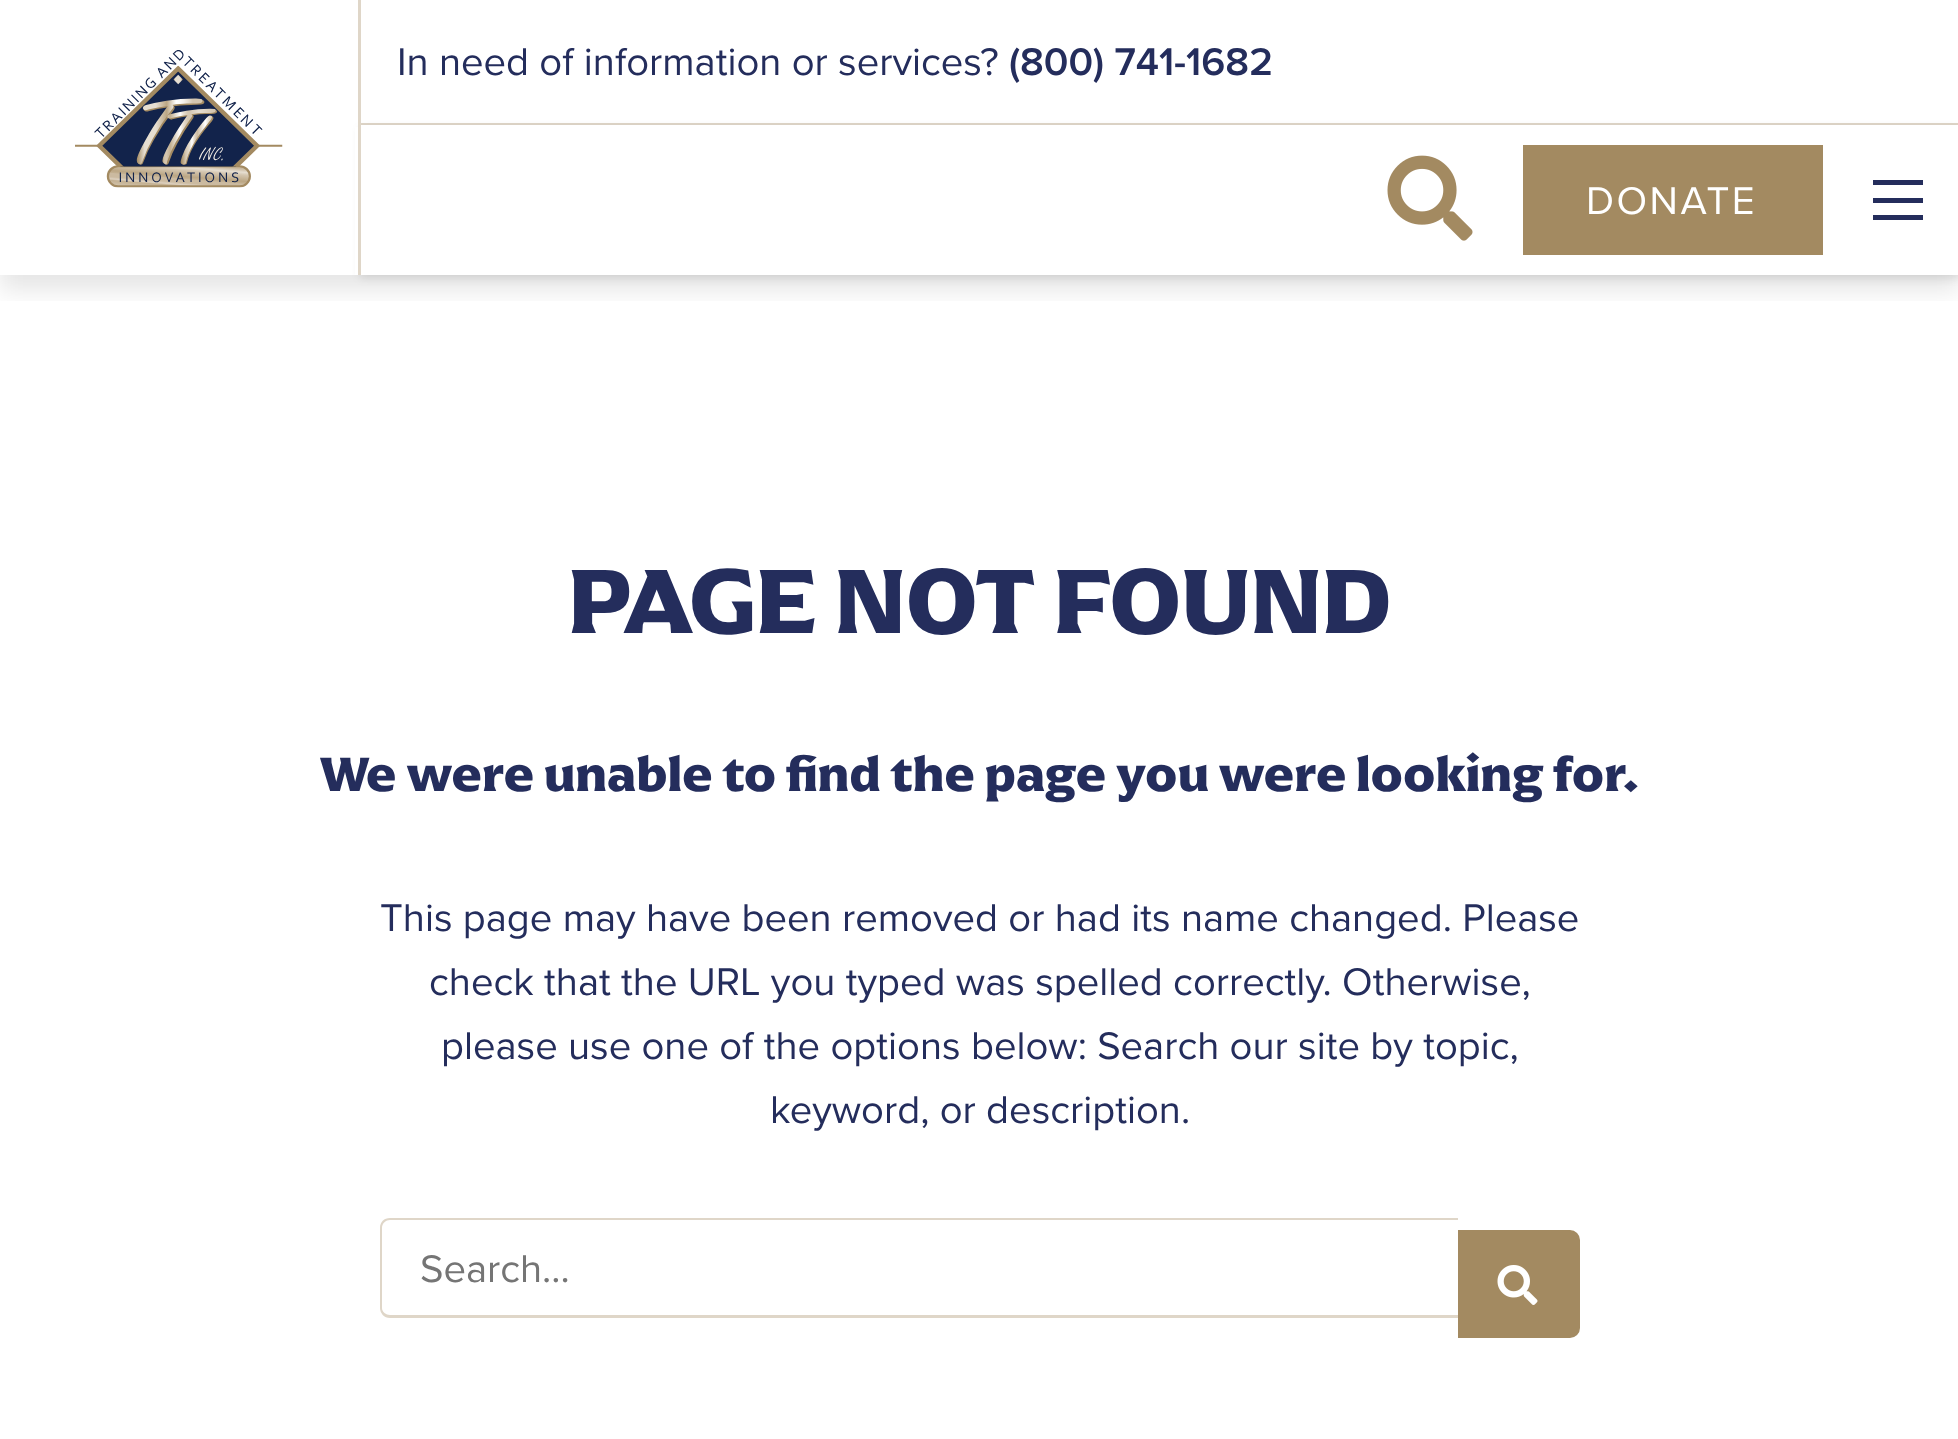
(async () => {
    const canvas = document.querySelector("canvas");
    canvas.width = 1958;
    canvas.height = 1439;
    const context = canvas.getContext("2d");
    context.miterLimit = 4;
    context.fontKerning = "normal";
    function write(s, x, y, font, color) {
        context.font = font;
        context.fillStyle = color;
        context.fillText(s, x, y);
    }
    function block(x, y, w, h, color) {
        context.fillStyle = color;
        context.fillRect(x, y, w, h);
    }
    async function photo(src, x, y, w, h) {
        const img = new Image();
        img.src = src;
        await img.decode();
        context.drawImage(img, x, y, w, h);
    }

    block(0, 0, 1958, 1439, "rgb(255, 255, 255)");
    context.save();
    context.beginPath();
    context.rect(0, 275, 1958, 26);
    context.clip();
    context.fillStyle = "rgba(0, 0, 0, 0.1)";
    context.filter = "blur(12.5px)";
    context.beginPath();
    context.rect(0, 15, 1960, 275);
    context.fill();
    context.filter = "none";
    context.restore();
    block(360, 123, 1598, 2, "rgb(223, 214, 200)");
    context.fillStyle = "rgba(0, 0, 0, 0.1)";
    context.filter = "blur(4px)";
    context.beginPath();
    context.rect(360, 128, 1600, 150);
    context.fill();
    context.filter = "none";
    block(355, 127, 3, 148, "rgb(255, 255, 255)");
    block(358, 0, 3, 275, "rgb(223, 214, 200)");
    await photo("media/1.png", 75, 50, 208, 138);
    write("In need of information or services?", 397, 75, "40px Proxima Nova", "rgb(36, 45, 92)");
    write("(800) 741-1682", 1009, 75, "600 40px Proxima Nova", "rgb(36, 45, 92)");
    block(361, 125, 1597, 150, "rgb(255, 255, 255)");
    await photo("media/2.png", 1387, 155, 86, 86);
    block(1523, 145, 300, 110, "rgb(163, 138, 97)");
    context.letterSpacing = "2.5px";
    write("DONATE", 1586, 214, "40px Proxima Nova", "rgb(255, 255, 255)");
    block(1873, 180, 50, 5, "rgb(36, 45, 92)");
    block(1873, 198, 50, 5, "rgb(36, 45, 92)");
    block(1873, 215, 50, 5, "rgb(36, 45, 92)");
    context.letterSpacing = "0px";
    write("PAGE NOT FOUND", 568, 633, "bold 95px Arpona", "rgb(36, 45, 92)");
    write("We were unable to find the page you were looking for.", 320, 791, "bold 50px Arpona", "rgb(36, 45, 92)");
    write("This page may have been removed or had its name changed. Please", 380, 931, "40px Proxima Nova", "rgb(36, 45, 92)");
    write("check that the URL you typed was spelled correctly. Otherwise,", 429, 995, "40px Proxima Nova", "rgb(36, 45, 92)");
    write("please use one of the options below: Search our site by topic,", 441, 1059, "40px Proxima Nova", "rgb(36, 45, 92)");
    write("keyword, or description.", 770, 1123, "40px Proxima Nova", "rgb(36, 45, 92)");
    context.fillStyle = "rgb(223, 214, 200)";
    context.beginPath();
    context.moveTo(390, 1218);
    context.lineTo(1458, 1218);
    context.lineTo(1458, 1318);
    context.lineTo(390, 1318);
    context.bezierCurveTo(384, 1318, 380, 1313, 380, 1308);
    context.lineTo(380, 1228);
    context.bezierCurveTo(380, 1222, 384, 1218, 390, 1218);
    context.closePath();
    context.moveTo(390, 1220);
    context.lineTo(1458, 1220);
    context.lineTo(1458, 1315);
    context.lineTo(390, 1315);
    context.bezierCurveTo(386, 1315, 382, 1312, 382, 1308);
    context.lineTo(382, 1228);
    context.bezierCurveTo(382, 1223, 386, 1220, 390, 1220);
    context.closePath();
    context.fill("evenodd");
    write("Search...", 420, 1282, "40px Proxima Nova", "rgb(117, 117, 117)");
    context.fillStyle = "rgb(163, 138, 97)";
    context.beginPath();
    context.roundRect(1459.5, 1231.5, 119, 105, [0, 8.5, 8.5, 0]);
    context.fill();
    context.strokeStyle = "rgb(163, 138, 97)";
    context.lineWidth = 3;
    context.stroke();
    await photo("media/3.png", 1497, 1265, 41, 40);
})();
